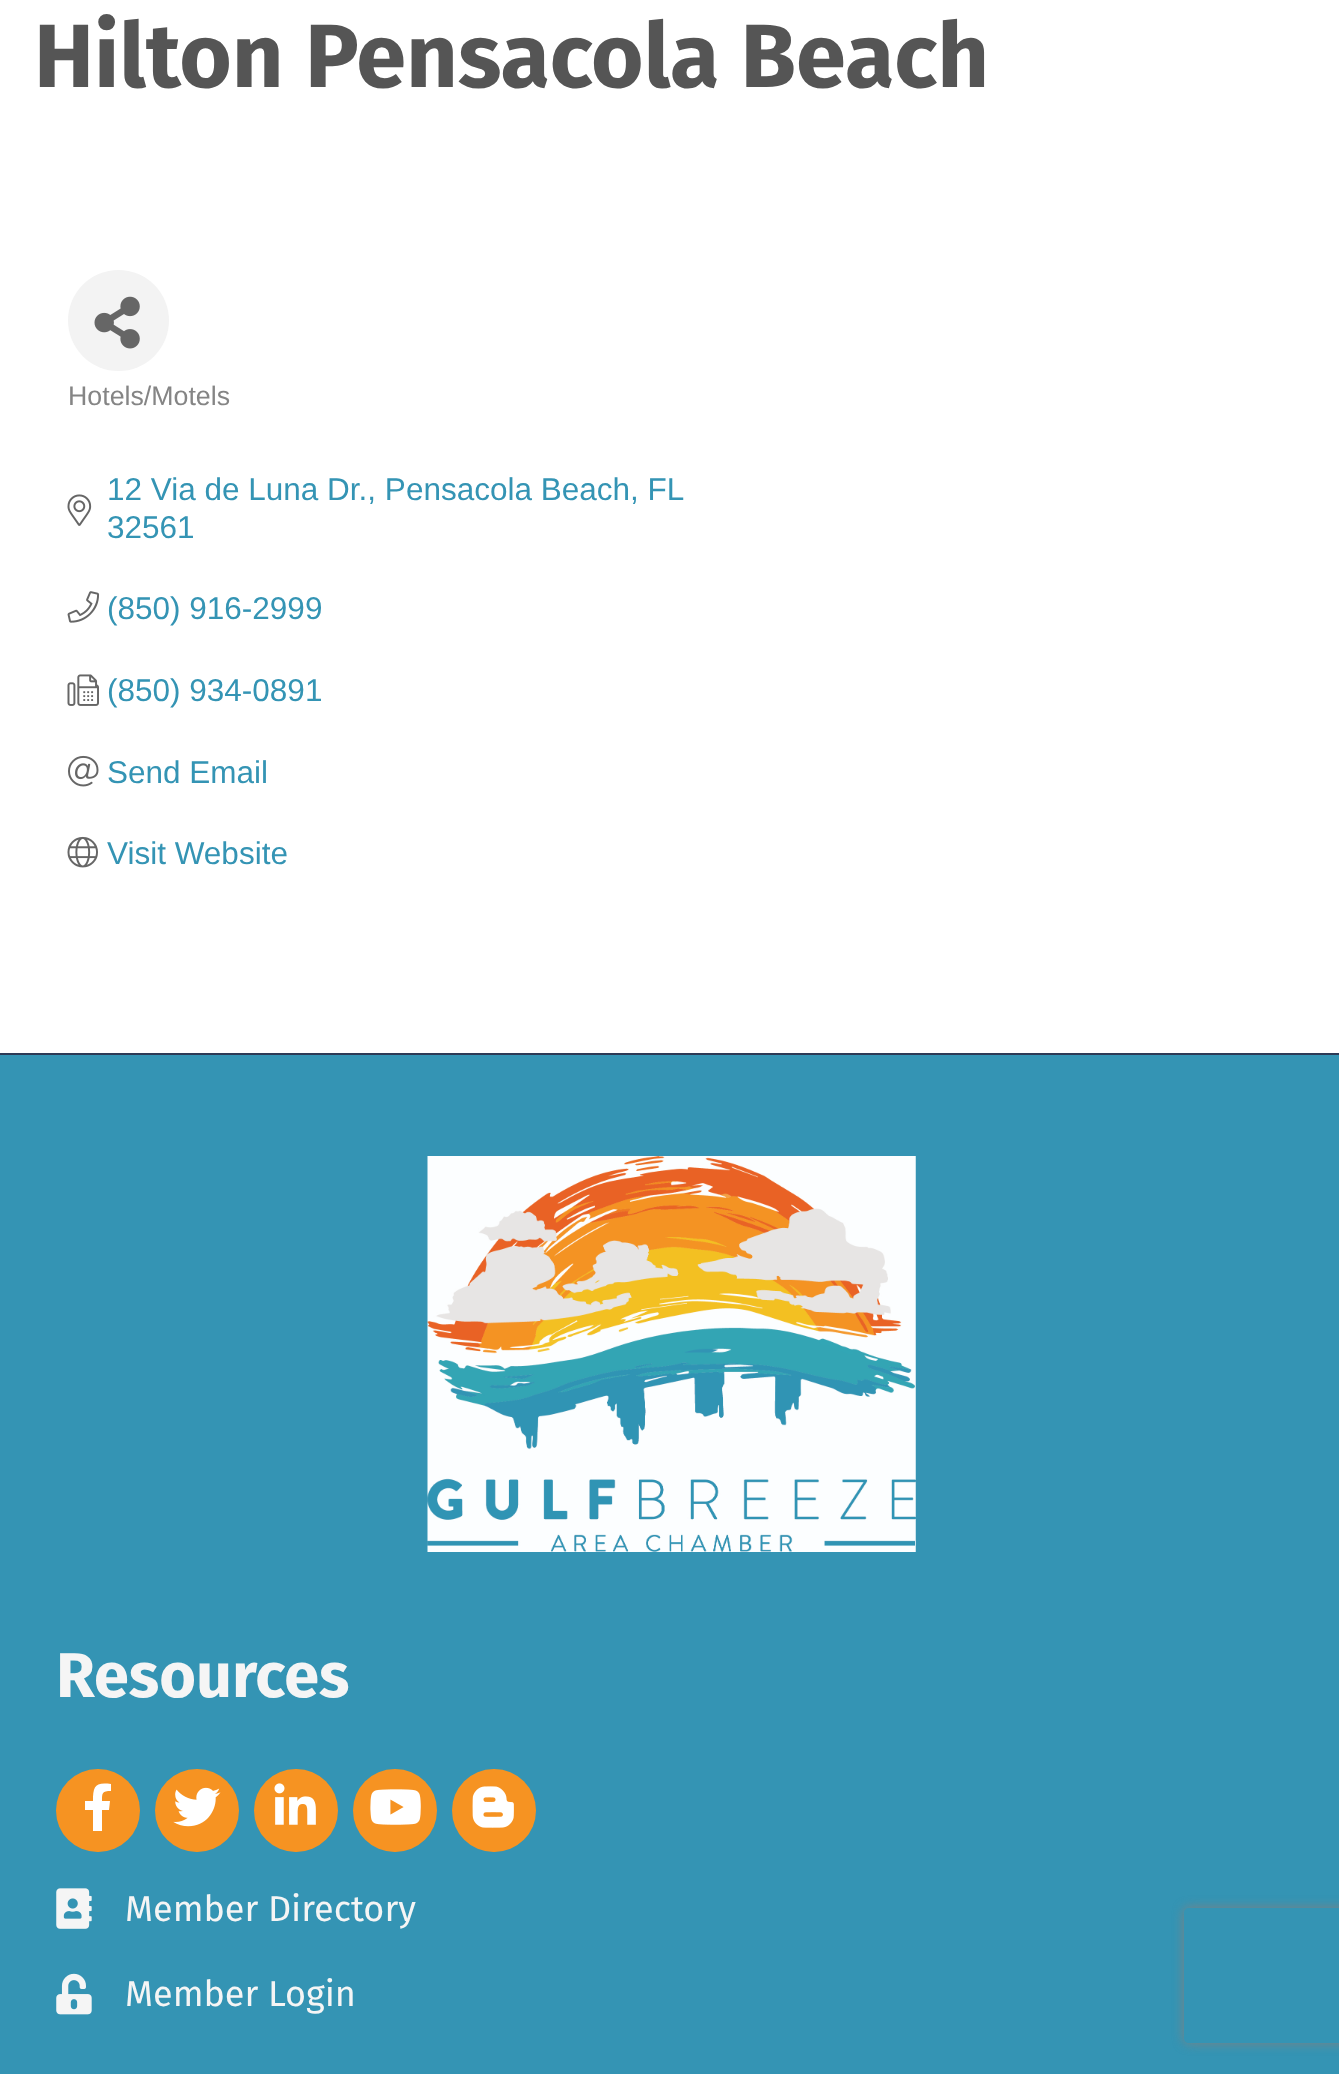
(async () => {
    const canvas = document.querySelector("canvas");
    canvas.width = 1339;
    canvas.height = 2074;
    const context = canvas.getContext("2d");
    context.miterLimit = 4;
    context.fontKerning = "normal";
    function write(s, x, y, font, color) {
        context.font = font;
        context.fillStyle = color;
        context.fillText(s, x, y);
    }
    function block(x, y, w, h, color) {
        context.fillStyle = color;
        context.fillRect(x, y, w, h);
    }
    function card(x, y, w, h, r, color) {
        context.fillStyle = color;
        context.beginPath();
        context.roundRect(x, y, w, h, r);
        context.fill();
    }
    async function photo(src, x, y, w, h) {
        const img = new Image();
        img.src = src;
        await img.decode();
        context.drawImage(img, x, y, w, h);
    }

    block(0, 0, 1339, 2074, "rgb(255, 255, 255)");
    write("Hilton Pensacola Beach", 34, 87, "bold 90px Fira Sans", "rgb(85, 85, 85)");
    context.fillStyle = "rgb(243, 243, 243)";
    context.beginPath();
    context.arc(118.5, 320.5, 50.5, 0, Math.PI * 2);
    context.fill();
    await photo("media/1.png", 94, 296, 46, 53);
    write("Hotels/Motels", 68, 405, "26.75px Liberation Sans", "rgb(133, 133, 133)");
    write("12 Via de Luna Dr., Pensacola Beach, FL", 107, 500, "31.5px Liberation Sans", "rgb(52, 148, 180)");
    await photo("media/2.png", 67, 494, 25, 32);
    write("32561", 107, 538, "31.5px Liberation Sans", "rgb(52, 148, 180)");
    await photo("media/3.png", 67, 591, 33, 32);
    write("(850) 916-2999", 107, 619, "31.5px Liberation Sans", "rgb(52, 148, 180)");
    await photo("media/4.png", 67, 674, 32, 32);
    write("(850) 934-0891", 107, 701, "31.5px Liberation Sans", "rgb(52, 148, 180)");
    await photo("media/5.png", 68, 755, 31, 32);
    write("Send Email", 107, 783, "31.5px Liberation Sans", "rgb(52, 148, 180)");
    await photo("media/6.png", 67, 836, 31, 32);
    write("Visit Website", 107, 864, "31.5px Liberation Sans", "rgb(52, 148, 180)");
    block(0, 1055, 1339, 1019, "rgb(52, 148, 180)");
    block(0, 1053, 1339, 2, "rgb(44, 58, 86)");
    await photo("media/7.png", 427, 1156, 489, 396);
    write("Resources", 56, 1697, "bold 63px Fira Sans", "rgb(245, 245, 245)");
    card(56, 1769, 84, 83, 41.5, "rgb(246, 147, 34)");
    context.fillStyle = "rgb(255, 255, 255)";
    context.beginPath();
    context.moveTo(109, 1810);
    context.lineTo(102, 1810);
    context.lineTo(102, 1831);
    context.lineTo(93, 1831);
    context.lineTo(93, 1810);
    context.lineTo(85, 1810);
    context.lineTo(85, 1801);
    context.lineTo(93, 1801);
    context.bezierCurveTo(93, 1786, 95, 1782, 111, 1784);
    context.lineTo(111, 1791);
    context.bezierCurveTo(102, 1791, 102, 1793, 102, 1801);
    context.lineTo(110, 1801);
    context.closePath();
    context.fill();
    card(155, 1769, 84, 83, 41.5, "rgb(246, 147, 34)");
    await photo("media/8.png", 173, 1787, 48, 40);
    card(254, 1769, 84, 83, 41.5, "rgb(246, 147, 34)");
    await photo("media/9.png", 274, 1783, 42, 42);
    card(353, 1769, 84, 83, 41.5, "rgb(246, 147, 34)");
    await photo("media/10.png", 370, 1789, 51, 36);
    card(452, 1769, 84, 83, 41.5, "rgb(246, 147, 34)");
    await photo("media/11.png", 472, 1786, 42, 42);
    await photo("media/12.png", 56, 1888, 36, 41);
    write("Member Directory", 125, 1921, "36px Fira Sans", "rgb(245, 245, 245)");
    await photo("media/13.png", 56, 1973, 36, 42);
    write("Member Login", 125, 2006, "36px Fira Sans", "rgb(245, 245, 245)");
    context.save();
    context.beginPath();
    context.moveTo(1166, 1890);
    context.lineTo(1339, 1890);
    context.lineTo(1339, 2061);
    context.lineTo(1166, 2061);
    context.closePath();
    context.moveTo(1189, 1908);
    context.lineTo(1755, 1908);
    context.bezierCurveTo(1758, 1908, 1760, 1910, 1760, 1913);
    context.lineTo(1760, 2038);
    context.bezierCurveTo(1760, 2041, 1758, 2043, 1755, 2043);
    context.lineTo(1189, 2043);
    context.bezierCurveTo(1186, 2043, 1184, 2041, 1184, 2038);
    context.lineTo(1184, 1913);
    context.bezierCurveTo(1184, 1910, 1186, 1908, 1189, 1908);
    context.closePath();
    context.clip("evenodd");
    context.fillStyle = "rgb(128, 128, 128)";
    context.filter = "blur(5.5px)";
    context.beginPath();
    context.roundRect(1184, 1908, 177, 135, 5);
    context.fill();
    context.filter = "none";
    context.restore();
})();
